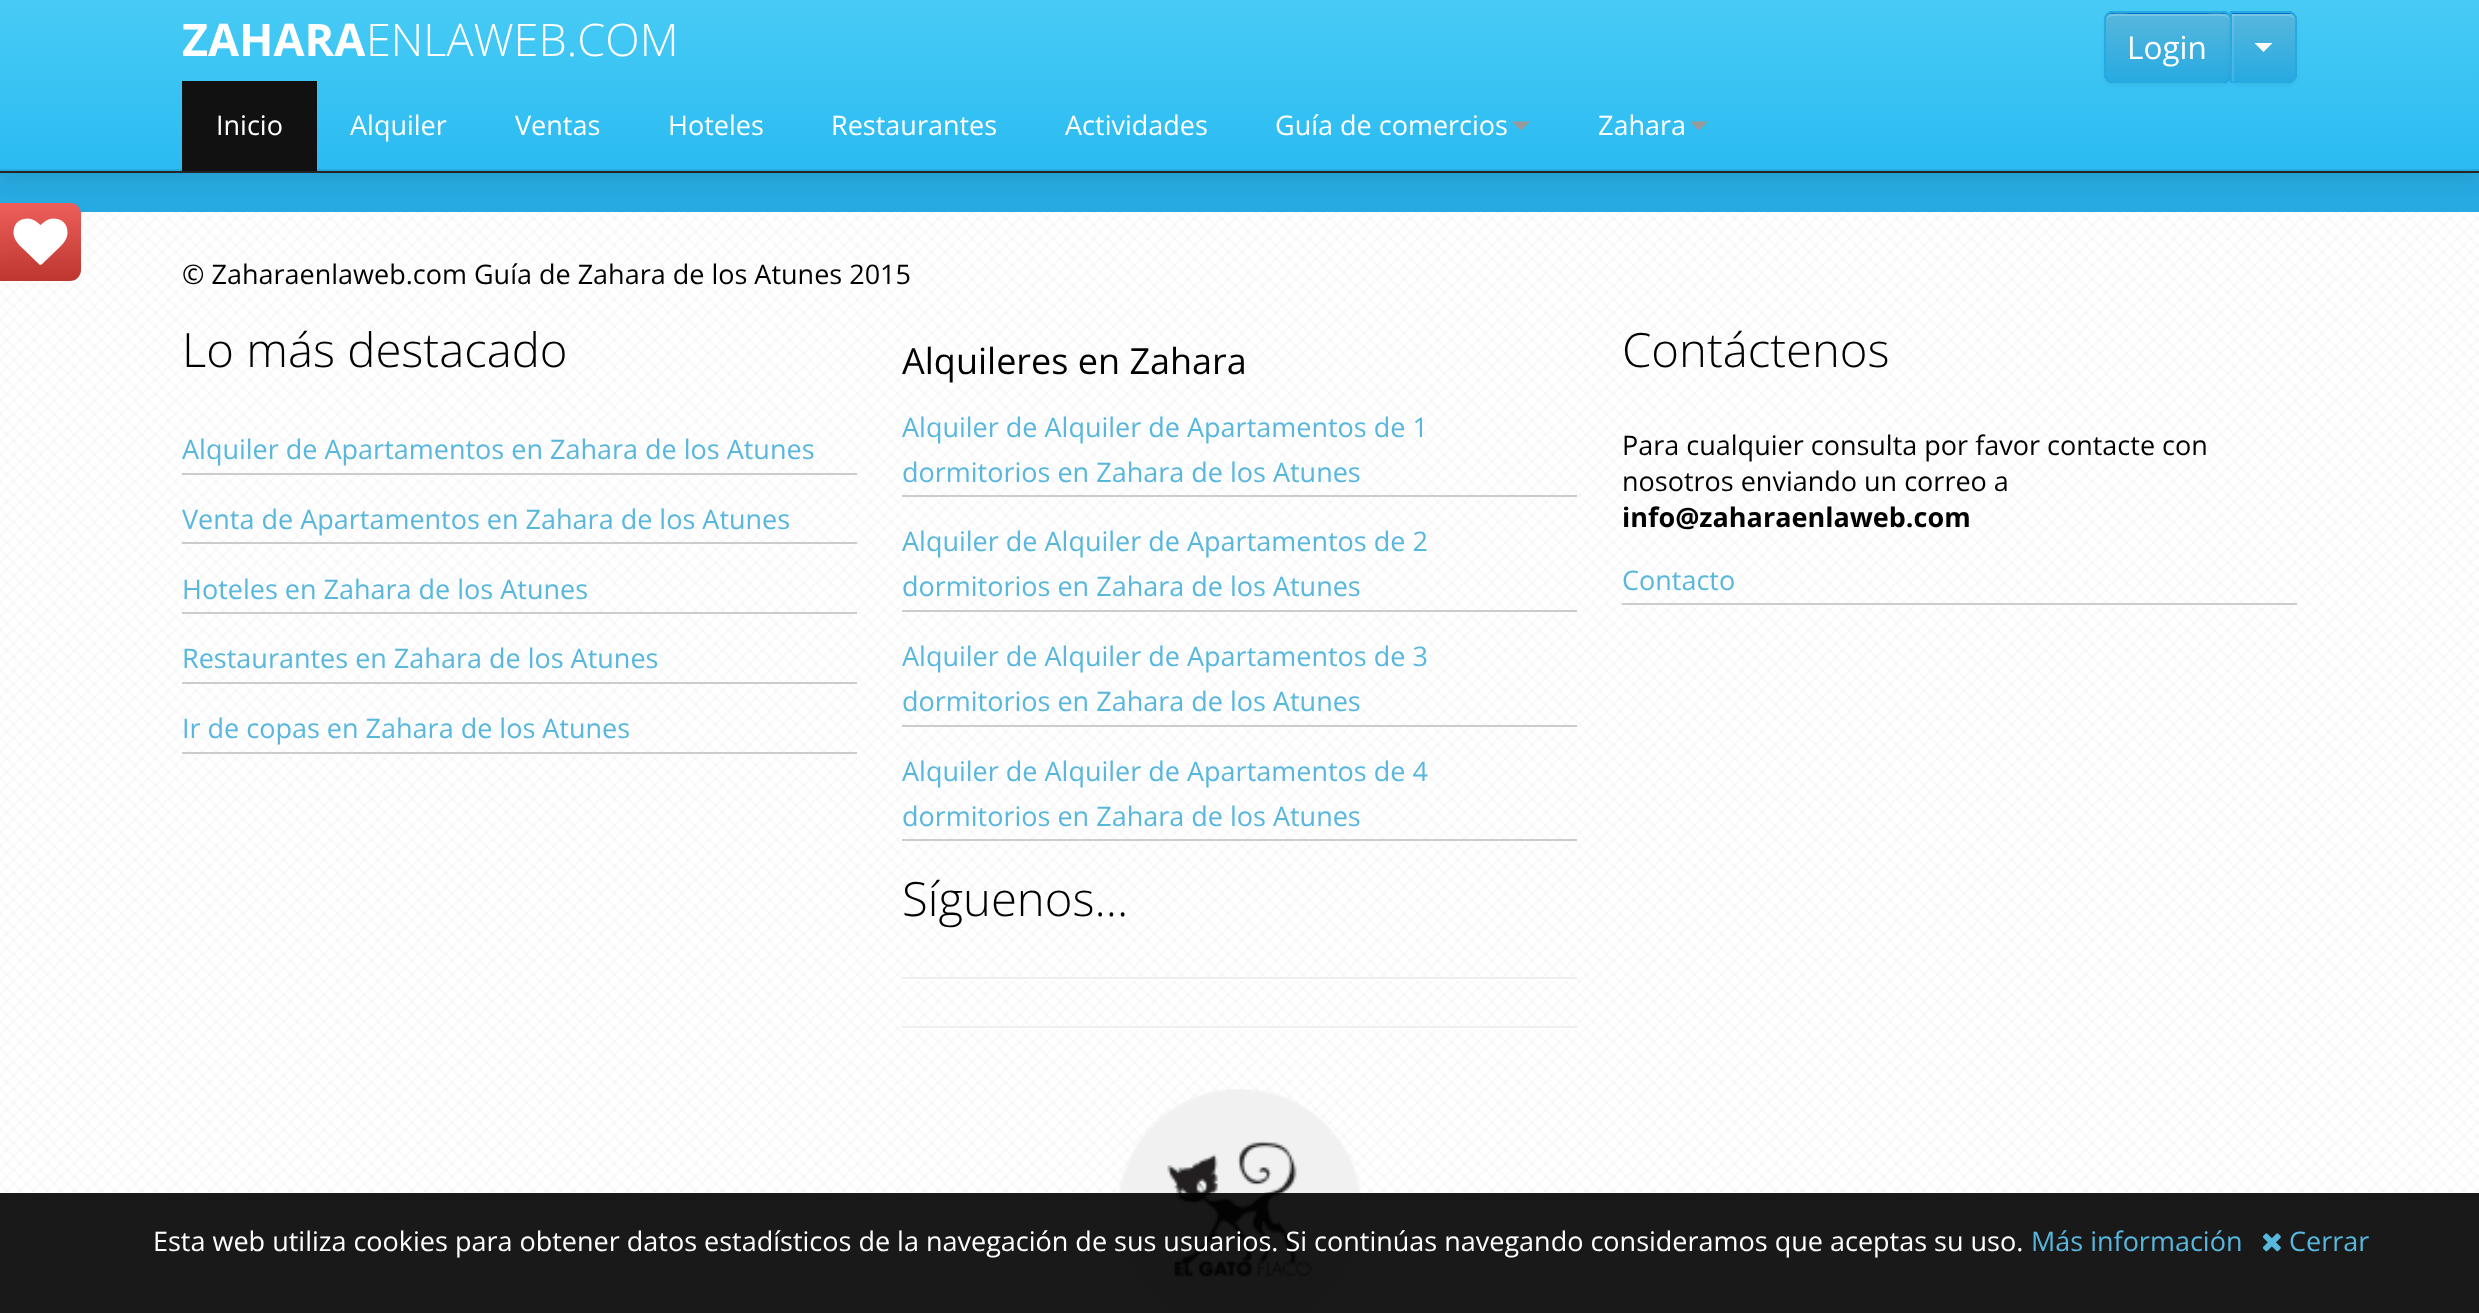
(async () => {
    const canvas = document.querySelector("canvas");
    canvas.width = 2479;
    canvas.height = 1313;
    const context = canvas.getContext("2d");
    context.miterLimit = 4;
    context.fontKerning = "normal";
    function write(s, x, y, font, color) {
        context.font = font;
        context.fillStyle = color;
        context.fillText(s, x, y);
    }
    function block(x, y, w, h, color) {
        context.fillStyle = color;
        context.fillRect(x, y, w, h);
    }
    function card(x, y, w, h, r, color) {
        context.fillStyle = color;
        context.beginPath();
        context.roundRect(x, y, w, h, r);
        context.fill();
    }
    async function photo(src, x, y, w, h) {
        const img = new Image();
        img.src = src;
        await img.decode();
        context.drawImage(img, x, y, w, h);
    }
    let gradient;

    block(0, 0, 2479, 1313, "rgb(255, 255, 255)");
    await photo("media/2.png", 0, 212, 2479, 1101);
    block(0, 173, 2479, 39, "rgb(39, 170, 225)");
    gradient = context.createLinearGradient(40, 203, 41, 281);
    gradient.addColorStop(0, "rgb(238, 95, 91)");
    gradient.addColorStop(1, "rgb(189, 54, 47)");
    context.fillStyle = gradient;
    context.beginPath();
    context.roundRect(0, 203, 81, 78, [0, 11, 11, 0]);
    context.fill();
    context.fillStyle = "rgba(0, 0, 0, 0.1)";
    context.filter = "blur(11px)";
    context.beginPath();
    context.rect(0, 2, 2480, 174);
    context.fill();
    context.filter = "none";
    gradient = context.createLinearGradient(1240, 0, 1240, 171);
    gradient.addColorStop(0, "rgb(72, 203, 245)");
    gradient.addColorStop(1, "rgb(42, 187, 242)");
    context.fillStyle = gradient;
    context.fillRect(0, 0, 2479, 169);
    block(0, 169, 2479, 2, "rgb(38, 168, 218)");
    block(0, 171, 2479, 2, "rgb(37, 37, 37)");
    write("ZAHARA", 182, 56, "bold 45px Open Sans", "rgb(255, 255, 255)");
    write("ENLAWEB.COM", 366, 56, "300 45px Open Sans", "rgb(255, 255, 255)");
    context.fillStyle = "rgba(0, 0, 0, 0.05)";
    context.filter = "blur(2px)";
    context.beginPath();
    context.roundRect(2104, 14, 128, 72, 9);
    context.fill();
    context.filter = "none";
    card(2104, 11, 128, 72, 9, "rgb(0, 109, 204)");
    context.save();
    context.beginPath();
    context.roundRect(2104, 11, 128, 72, 9);
    context.clip();
    gradient = context.createLinearGradient(2168, 13, 2168, 81);
    gradient.addColorStop(0, "rgb(88, 183, 221)");
    gradient.addColorStop(1, "rgb(39, 170, 225)");
    context.fillStyle = gradient;
    context.fillRect(2104, 14, 126, 67);
    context.restore();
    context.fillStyle = "rgba(255, 255, 255, 0.2)";
    context.beginPath();
    context.moveTo(2113, 16);
    context.lineTo(2223, 16);
    context.bezierCurveTo(2227, 16, 2230, 19, 2230, 22);
    context.bezierCurveTo(2230, 10, 2211, 14, 2205, 14);
    context.lineTo(2131, 14);
    context.bezierCurveTo(2125, 14, 2106, 10, 2106, 22);
    context.bezierCurveTo(2106, 19, 2109, 16, 2113, 16);
    context.closePath();
    context.fill();
    context.beginPath();
    context.roundRect(2105, 12, 126, 70, 8);
    context.strokeStyle = "rgb(39, 170, 225)";
    context.lineWidth = 2;
    context.stroke();
    write("Login", 2127, 59, "31.5px Open Sans", "rgb(255, 255, 255)");
    context.fillStyle = "rgba(0, 0, 0, 0.05)";
    context.filter = "blur(2px)";
    context.beginPath();
    context.roundRect(2230, 14, 67, 72, 9);
    context.fill();
    context.filter = "none";
    context.fillStyle = "rgb(0, 109, 204)";
    context.beginPath();
    context.roundRect(2230, 11, 67, 72, [0, 9, 9, 0]);
    context.fill();
    context.save();
    context.beginPath();
    context.roundRect(2230, 11, 67, 72, [0, 9, 9, 0]);
    context.clip();
    gradient = context.createLinearGradient(2264, 13, 2264, 81);
    gradient.addColorStop(0, "rgb(88, 183, 221)");
    gradient.addColorStop(1, "rgb(39, 170, 225)");
    context.fillStyle = gradient;
    context.fillRect(2232, 14, 65, 67);
    context.restore();
    context.fillStyle = "rgba(255, 255, 255, 0.2)";
    context.beginPath();
    context.moveTo(2232, 16);
    context.lineTo(2288, 16);
    context.bezierCurveTo(2292, 16, 2295, 19, 2295, 22);
    context.lineTo(2295, 21);
    context.bezierCurveTo(2295, 17, 2292, 14, 2288, 14);
    context.lineTo(2232, 14);
    context.closePath();
    context.fill();
    block(2232, 14, 2, 67, "rgba(255, 255, 255, 0.12)");
    context.beginPath();
    context.roundRect(2231, 12, 65, 70, [0, 8, 8, 0]);
    context.stroke();
    context.fillStyle = "rgb(255, 255, 255)";
    context.beginPath();
    context.moveTo(2254.5, 43);
    context.lineTo(2272.5, 43);
    context.lineTo(2263.5, 52);
    context.closePath();
    context.fill();
    block(182, 81, 135, 90, "rgb(17, 17, 17)");
    write("Inicio", 216, 135, "27px Open Sans", "rgb(255, 255, 255)");
    write("Alquiler", 350, 135, "27px Open Sans", "rgb(255, 255, 255)");
    write("Ventas", 515, 135, "27px Open Sans", "rgb(255, 255, 255)");
    write("Hoteles", 668, 135, "27px Open Sans", "rgb(255, 255, 255)");
    write("Restaurantes", 831, 135, "27px Open Sans", "rgb(255, 255, 255)");
    write("Actividades", 1065, 135, "27px Open Sans", "rgb(255, 255, 255)");
    write("Guía de comercios", 1275, 135, "27px Open Sans", "rgb(255, 255, 255)");
    context.fillStyle = "rgb(153, 153, 153)";
    context.beginPath();
    context.moveTo(1512, 121.5);
    context.lineTo(1530, 121.5);
    context.lineTo(1521, 130.5);
    context.closePath();
    context.fill();
    write("Zahara", 1598, 135, "27px Open Sans", "rgb(255, 255, 255)");
    context.fillStyle = "rgb(153, 153, 153)";
    context.beginPath();
    context.moveTo(1690, 121.5);
    context.lineTo(1708, 121.5);
    context.lineTo(1699, 130.5);
    context.closePath();
    context.fill();
    await photo("media/1.png", 13, 218, 55, 47);
    write("© Zaharaenlaweb.com Guía de Zahara de los Atunes 2015", 182, 284, "27px Open Sans", "rgb(0, 0, 0)");
    write("Lo más destacado", 182, 367, "300 47.25px Open Sans", "rgb(0, 0, 0)");
    block(182, 473, 675, 2, "rgb(204, 204, 204)");
    write("Alquiler de Apartamentos en Zahara de los Atunes", 182, 459, "27px Open Sans", "rgb(88, 183, 221)");
    block(182, 542, 675, 2, "rgb(204, 204, 204)");
    write("Venta de Apartamentos en Zahara de los Atunes", 182, 529, "27px Open Sans", "rgb(88, 183, 221)");
    block(182, 612, 675, 2, "rgb(204, 204, 204)");
    write("Hoteles en Zahara de los Atunes", 182, 599, "27px Open Sans", "rgb(88, 183, 221)");
    block(182, 682, 675, 2, "rgb(204, 204, 204)");
    write("Restaurantes en Zahara de los Atunes", 182, 668, "27px Open Sans", "rgb(88, 183, 221)");
    block(182, 752, 675, 2, "rgb(204, 204, 204)");
    write("Ir de copas en Zahara de los Atunes", 182, 738, "27px Open Sans", "rgb(88, 183, 221)");
    write("Alquileres en Zahara", 902, 374, "36px Open Sans", "rgb(0, 0, 0)");
    block(902, 495, 675, 2, "rgb(204, 204, 204)");
    write("Alquiler de Alquiler de Apartamentos de 1", 902, 437, "27px Open Sans", "rgb(88, 183, 221)");
    write("dormitorios en Zahara de los Atunes", 902, 482, "27px Open Sans", "rgb(88, 183, 221)");
    block(902, 610, 675, 2, "rgb(204, 204, 204)");
    write("Alquiler de Alquiler de Apartamentos de 2", 902, 551, "27px Open Sans", "rgb(88, 183, 221)");
    write("dormitorios en Zahara de los Atunes", 902, 596, "27px Open Sans", "rgb(88, 183, 221)");
    block(902, 725, 675, 2, "rgb(204, 204, 204)");
    write("Alquiler de Alquiler de Apartamentos de 3", 902, 666, "27px Open Sans", "rgb(88, 183, 221)");
    write("dormitorios en Zahara de los Atunes", 902, 711, "27px Open Sans", "rgb(88, 183, 221)");
    block(902, 839, 675, 2, "rgb(204, 204, 204)");
    write("Alquiler de Alquiler de Apartamentos de 4", 902, 781, "27px Open Sans", "rgb(88, 183, 221)");
    write("dormitorios en Zahara de los Atunes", 902, 826, "27px Open Sans", "rgb(88, 183, 221)");
    write("Síguenos...", 902, 916, "300 47.25px Open Sans", "rgb(0, 0, 0)");
    block(902, 977, 675, 2, "rgb(238, 238, 238)");
    block(902, 979, 675, 2, "rgb(255, 255, 255)");
    block(902, 1026, 675, 2, "rgb(238, 238, 238)");
    block(902, 1028, 675, 2, "rgb(255, 255, 255)");
    write("Contáctenos", 1622, 367, "300 47.25px Open Sans", "rgb(0, 0, 0)");
    write("Para cualquier consulta por favor contacte con", 1622, 455, "27px Open Sans", "rgb(0, 0, 0)");
    write("nosotros enviando un correo a", 1622, 491, "27px Open Sans", "rgb(0, 0, 0)");
    write("info@zaharaenlaweb.com", 1622, 527, "bold 27px Open Sans", "rgb(0, 0, 0)");
    block(1622, 603, 675, 2, "rgb(204, 204, 204)");
    write("Contacto", 1622, 590, "27px Open Sans", "rgb(88, 183, 221)");
    await photo("media/3.png", 1118, 1089, 244, 224);
    block(0, 1193, 2479, 120, "rgba(0, 0, 0, 0.9)");
    write("Esta web utiliza cookies para obtener datos estadísticos de la navegación de sus usuarios. Si continúas navegando consideramos que aceptas su uso.", 153, 1251, "27px Open Sans", "rgb(255, 255, 255)");
    write("Más información", 2031, 1251, "27px Open Sans", "rgb(88, 183, 221)");
    await photo("media/4.png", 2262, 1233, 19, 19);
    write("Cerrar", 2289, 1251, "27px Open Sans", "rgb(88, 183, 221)");
})();
